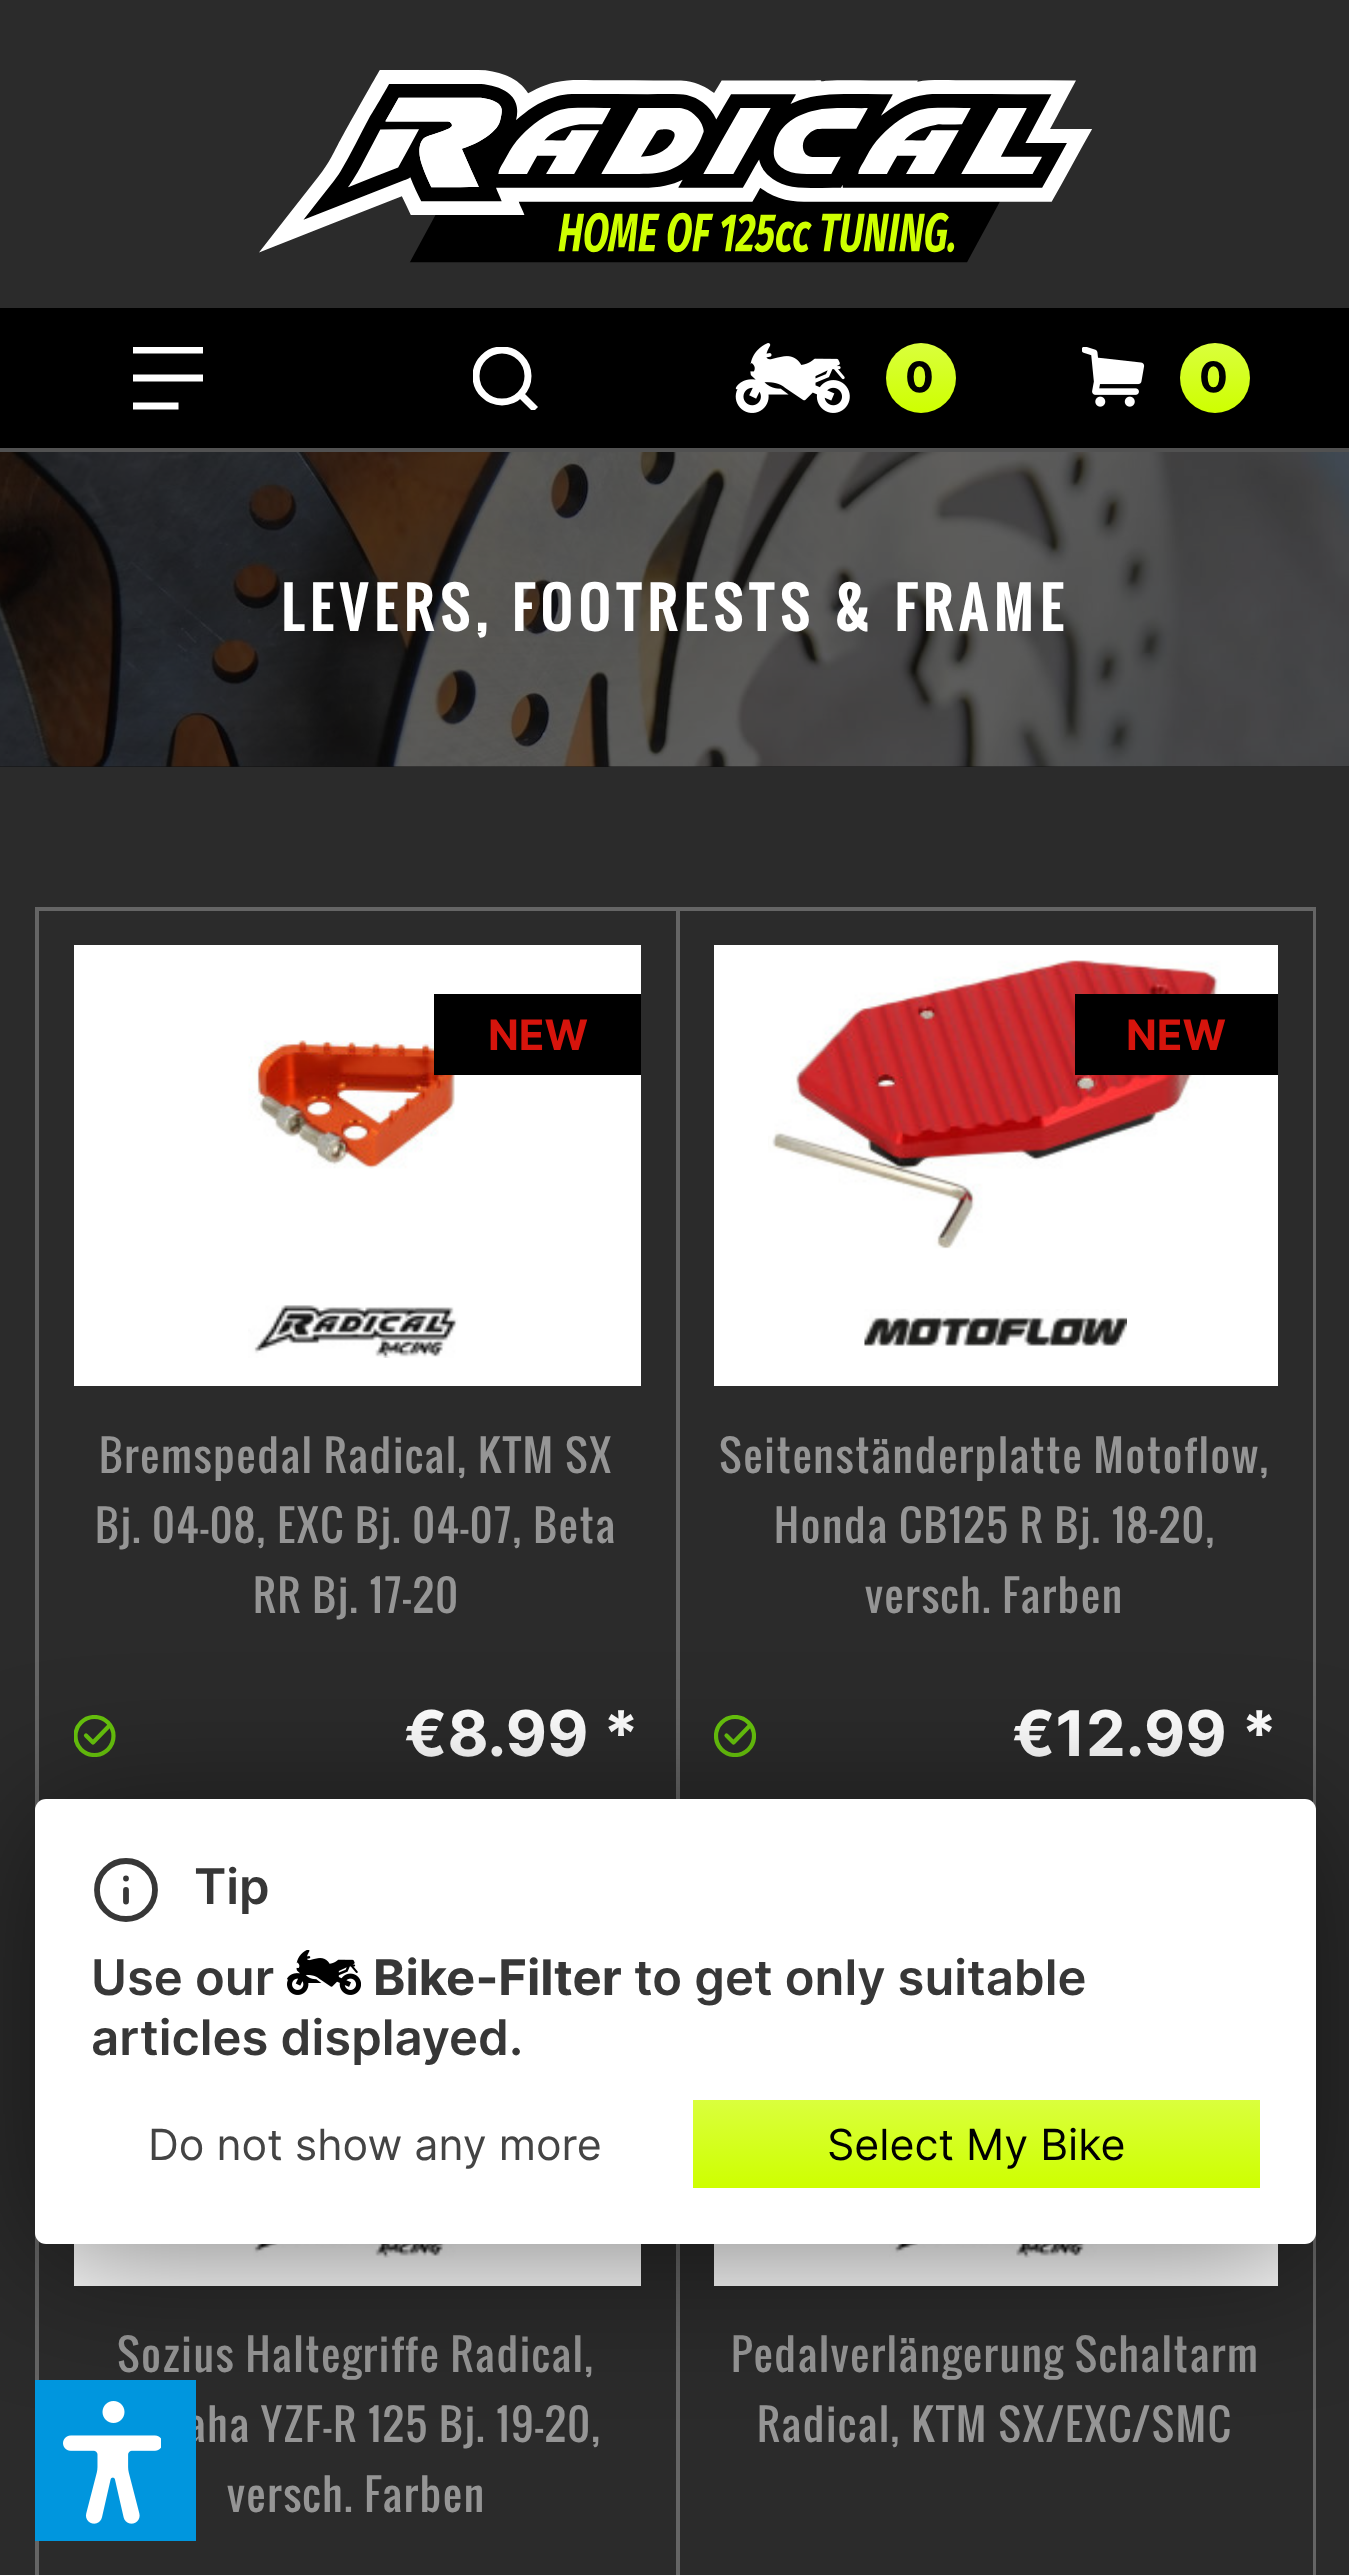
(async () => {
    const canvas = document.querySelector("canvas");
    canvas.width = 1349;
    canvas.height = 2575;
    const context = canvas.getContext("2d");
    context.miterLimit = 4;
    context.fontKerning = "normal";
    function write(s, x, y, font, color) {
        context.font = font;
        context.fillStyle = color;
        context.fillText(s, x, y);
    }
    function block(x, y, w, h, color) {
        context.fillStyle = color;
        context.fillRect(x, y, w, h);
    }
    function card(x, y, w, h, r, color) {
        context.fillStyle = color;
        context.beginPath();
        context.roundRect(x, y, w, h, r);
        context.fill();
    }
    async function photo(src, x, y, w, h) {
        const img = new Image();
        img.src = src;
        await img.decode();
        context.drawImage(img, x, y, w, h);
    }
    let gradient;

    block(0, 0, 1349, 2575, "rgb(43, 43, 43)");
    block(0, 766, 1349, 1, "rgb(17, 17, 17)");
    await photo("media/1.png", 259, 70, 833, 193);
    block(0, 448, 1349, 4, "rgb(81, 81, 81)");
    block(0, 308, 1349, 140, "rgb(0, 0, 0)");
    context.save();
    context.beginPath();
    context.rect(133, 347, 70, 63);
    context.clip();
    context.beginPath();
    context.moveTo(133, 350);
    context.lineTo(203, 350);
    context.strokeStyle = "rgb(255, 255, 255)";
    context.lineWidth = 7;
    context.stroke();
    context.restore();
    context.beginPath();
    context.moveTo(133, 378);
    context.lineTo(203, 378);
    context.strokeStyle = "rgb(255, 255, 255)";
    context.lineWidth = 7;
    context.stroke();
    context.beginPath();
    context.moveTo(133, 406);
    context.lineTo(178.5, 406);
    context.stroke();
    context.save();
    context.beginPath();
    context.rect(473, 347, 66, 63);
    context.clip();
    context.beginPath();
    context.arc(502, 376, 26, 0, Math.PI * 2);
    context.stroke();
    context.beginPath();
    context.moveTo(535.5, 409.5);
    context.lineTo(521.5, 395.5);
    context.stroke();
    context.restore();
    await photo("media/2.png", 735, 343, 115, 70);
    gradient = context.createLinearGradient(921, 343, 921, 413);
    gradient.addColorStop(0, "rgb(218, 255, 61)");
    gradient.addColorStop(1, "rgb(206, 255, 0)");
    context.fillStyle = gradient;
    context.beginPath();
    context.arc(921, 378, 35, 0, Math.PI * 2);
    context.fill();
    write("0", 905, 392, "bold 42px Inter", "rgb(0, 0, 0)");
    await photo("media/3.png", 1082, 347, 63, 60);
    gradient = context.createLinearGradient(1215, 343, 1215, 413);
    gradient.addColorStop(0, "rgb(218, 255, 61)");
    gradient.addColorStop(1, "rgb(206, 255, 0)");
    context.fillStyle = gradient;
    context.beginPath();
    context.arc(1215, 378, 35, 0, Math.PI * 2);
    context.fill();
    write("0", 1199, 392, "bold 42px Inter", "rgb(0, 0, 0)");
    await photo("media/4.png", 0, 452, 1349, 315);
    context.letterSpacing = "7px";
    write("LEVERS, FOOTRESTS & FRAME", 281, 631, "bold 54px Oswald", "rgb(255, 255, 255)");
    block(35, 907, 1281, 4, "rgb(101, 101, 101)");
    block(35, 907, 4, 1668, "rgb(101, 101, 101)");
    block(676, 910, 4, 889, "rgb(101, 101, 101)");
    block(74, 945, 567, 441, "rgb(255, 255, 255)");
    await photo("media/5.png", 248, 1040, 207, 129);
    block(434, 994, 207, 81, "rgb(0, 0, 0)");
    context.letterSpacing = "0px";
    write("NEW", 488, 1050, "bold 42px Inter", "rgb(214, 20, 12)");
    await photo("media/6.png", 248, 1305, 210, 53);
    context.letterSpacing = "1.75px";
    write("Bremspedal Radical, KTM SX", 99, 1473, "42px Oswald", "rgb(149, 149, 149)");
    write("Bj. 04-08, EXC Bj. 04-07, Beta", 95, 1543, "42px Oswald", "rgb(149, 149, 149)");
    write("RR Bj. 17-20", 253, 1613, "42px Oswald", "rgb(149, 149, 149)");
    context.save();
    context.beginPath();
    context.rect(74, 1715, 42, 42);
    context.clip();
    context.beginPath();
    context.arc(94.5, 1736, 19, 0, Math.PI * 2);
    context.strokeStyle = "rgb(104, 196, 13)";
    context.lineWidth = 4.2;
    context.stroke();
    context.restore();
    context.beginPath();
    context.moveTo(86, 1735.5);
    context.lineTo(93, 1742.5);
    context.lineTo(109, 1726);
    context.strokeStyle = "rgb(104, 196, 13)";
    context.lineWidth = 4.2;
    context.lineCap = "round";
    context.lineJoin = "round";
    context.stroke();
    context.letterSpacing = "0px";
    write("€8.99 *", 404, 1756, "bold 63px Inter", "rgb(255, 255, 255)");
    block(1313, 910, 3, 900, "rgb(101, 101, 101)");
    block(714, 945, 564, 441, "rgb(255, 255, 255)");
    await photo("media/7.png", 768, 960, 453, 289);
    block(1075, 994, 203, 81, "rgb(0, 0, 0)");
    write("NEW", 1126, 1050, "bold 42px Inter", "rgb(214, 20, 12)");
    await photo("media/8.png", 864, 1309, 263, 38);
    context.letterSpacing = "1.75px";
    write("Seitenständerplatte Motoflow,", 719, 1473, "42px Oswald", "rgb(149, 149, 149)");
    write("Honda CB125 R Bj. 18-20,", 774, 1543, "42px Oswald", "rgb(149, 149, 149)");
    write("versch. Farben", 865, 1613, "42px Oswald", "rgb(149, 149, 149)");
    context.save();
    context.beginPath();
    context.rect(714, 1715, 42, 42);
    context.clip();
    context.beginPath();
    context.arc(735, 1736, 19, 0, Math.PI * 2);
    context.stroke();
    context.restore();
    context.beginPath();
    context.moveTo(726.5, 1735.5);
    context.lineTo(733.5, 1742.5);
    context.lineTo(749.5, 1726);
    context.stroke();
    context.letterSpacing = "0px";
    write("€12.99 *", 1012, 1756, "bold 63px Inter", "rgb(255, 255, 255)");
    block(676, 2244, 4, 331, "rgb(101, 101, 101)");
    block(74, 2244, 567, 42, "rgb(255, 255, 255)");
    await photo("media/9.png", 253, 2244, 205, 14);
    context.letterSpacing = "1.75px";
    write("Sozius Haltegriffe Radical,", 117, 2372, "42px Oswald", "rgb(149, 149, 149)");
    write("aha YZF-R 125 Bj. 19-20,", 186, 2442, "42px Oswald", "rgb(149, 149, 149)");
    write("versch. Farben", 227, 2512, "42px Oswald", "rgb(149, 149, 149)");
    block(1313, 2233, 3, 342, "rgb(101, 101, 101)");
    block(714, 2244, 564, 42, "rgb(255, 255, 255)");
    await photo("media/10.png", 889, 2244, 210, 14);
    write("Pedalverlängerung Schaltarm", 731, 2372, "42px Oswald", "rgb(149, 149, 149)");
    write("Radical, KTM SX/EXC/SMC", 757, 2442, "42px Oswald", "rgb(149, 149, 149)");
    context.fillStyle = "rgba(0, 0, 0, 0.5)";
    context.filter = "blur(70px)";
    context.beginPath();
    context.roundRect(35, 1813, 1281, 445, 11);
    context.fill();
    context.filter = "none";
    card(35, 1799, 1281, 445, 11, "rgb(255, 255, 255)");
    context.beginPath();
    context.arc(126, 1890, 29, 0, Math.PI * 2);
    context.strokeStyle = "rgb(55, 55, 55)";
    context.lineWidth = 5.8;
    context.stroke();
    context.letterSpacing = "0px";
    write("Tip", 194, 1904, "600 49px Inter", "rgb(55, 55, 55)");
    context.beginPath();
    context.moveTo(126, 1901.5);
    context.lineTo(126, 1890);
    context.moveTo(126, 1878.5);
    context.lineTo(126, 1878.5);
    context.stroke();
    write("Use our", 91, 1995, "600 49px Inter", "rgb(55, 55, 55)");
    await photo("media/11.png", 287, 1950, 74, 45);
    write("Bike-Filter", 373, 1995, "bold 49px Inter", "rgb(55, 55, 55)");
    write("to get only suitable", 634, 1995, "600 49px Inter", "rgb(55, 55, 55)");
    write("articles displayed.", 91, 2055, "600 49px Inter", "rgb(55, 55, 55)");
    write("Do not show any more", 148, 2160, "42.9px Inter", "rgb(68, 68, 68)");
    gradient = context.createLinearGradient(977, 2100, 977, 2188);
    gradient.addColorStop(0, "rgb(218, 255, 61)");
    gradient.addColorStop(1, "rgb(206, 255, 0)");
    context.fillStyle = gradient;
    context.fillRect(693, 2100, 567, 88);
    write("Select My Bike", 827, 2160, "42.9px Inter", "rgb(0, 0, 0)");
    block(35, 2380, 161, 161, "rgb(0, 150, 222)");
    await photo("media/12.png", 63, 2401, 98, 123);
})();
